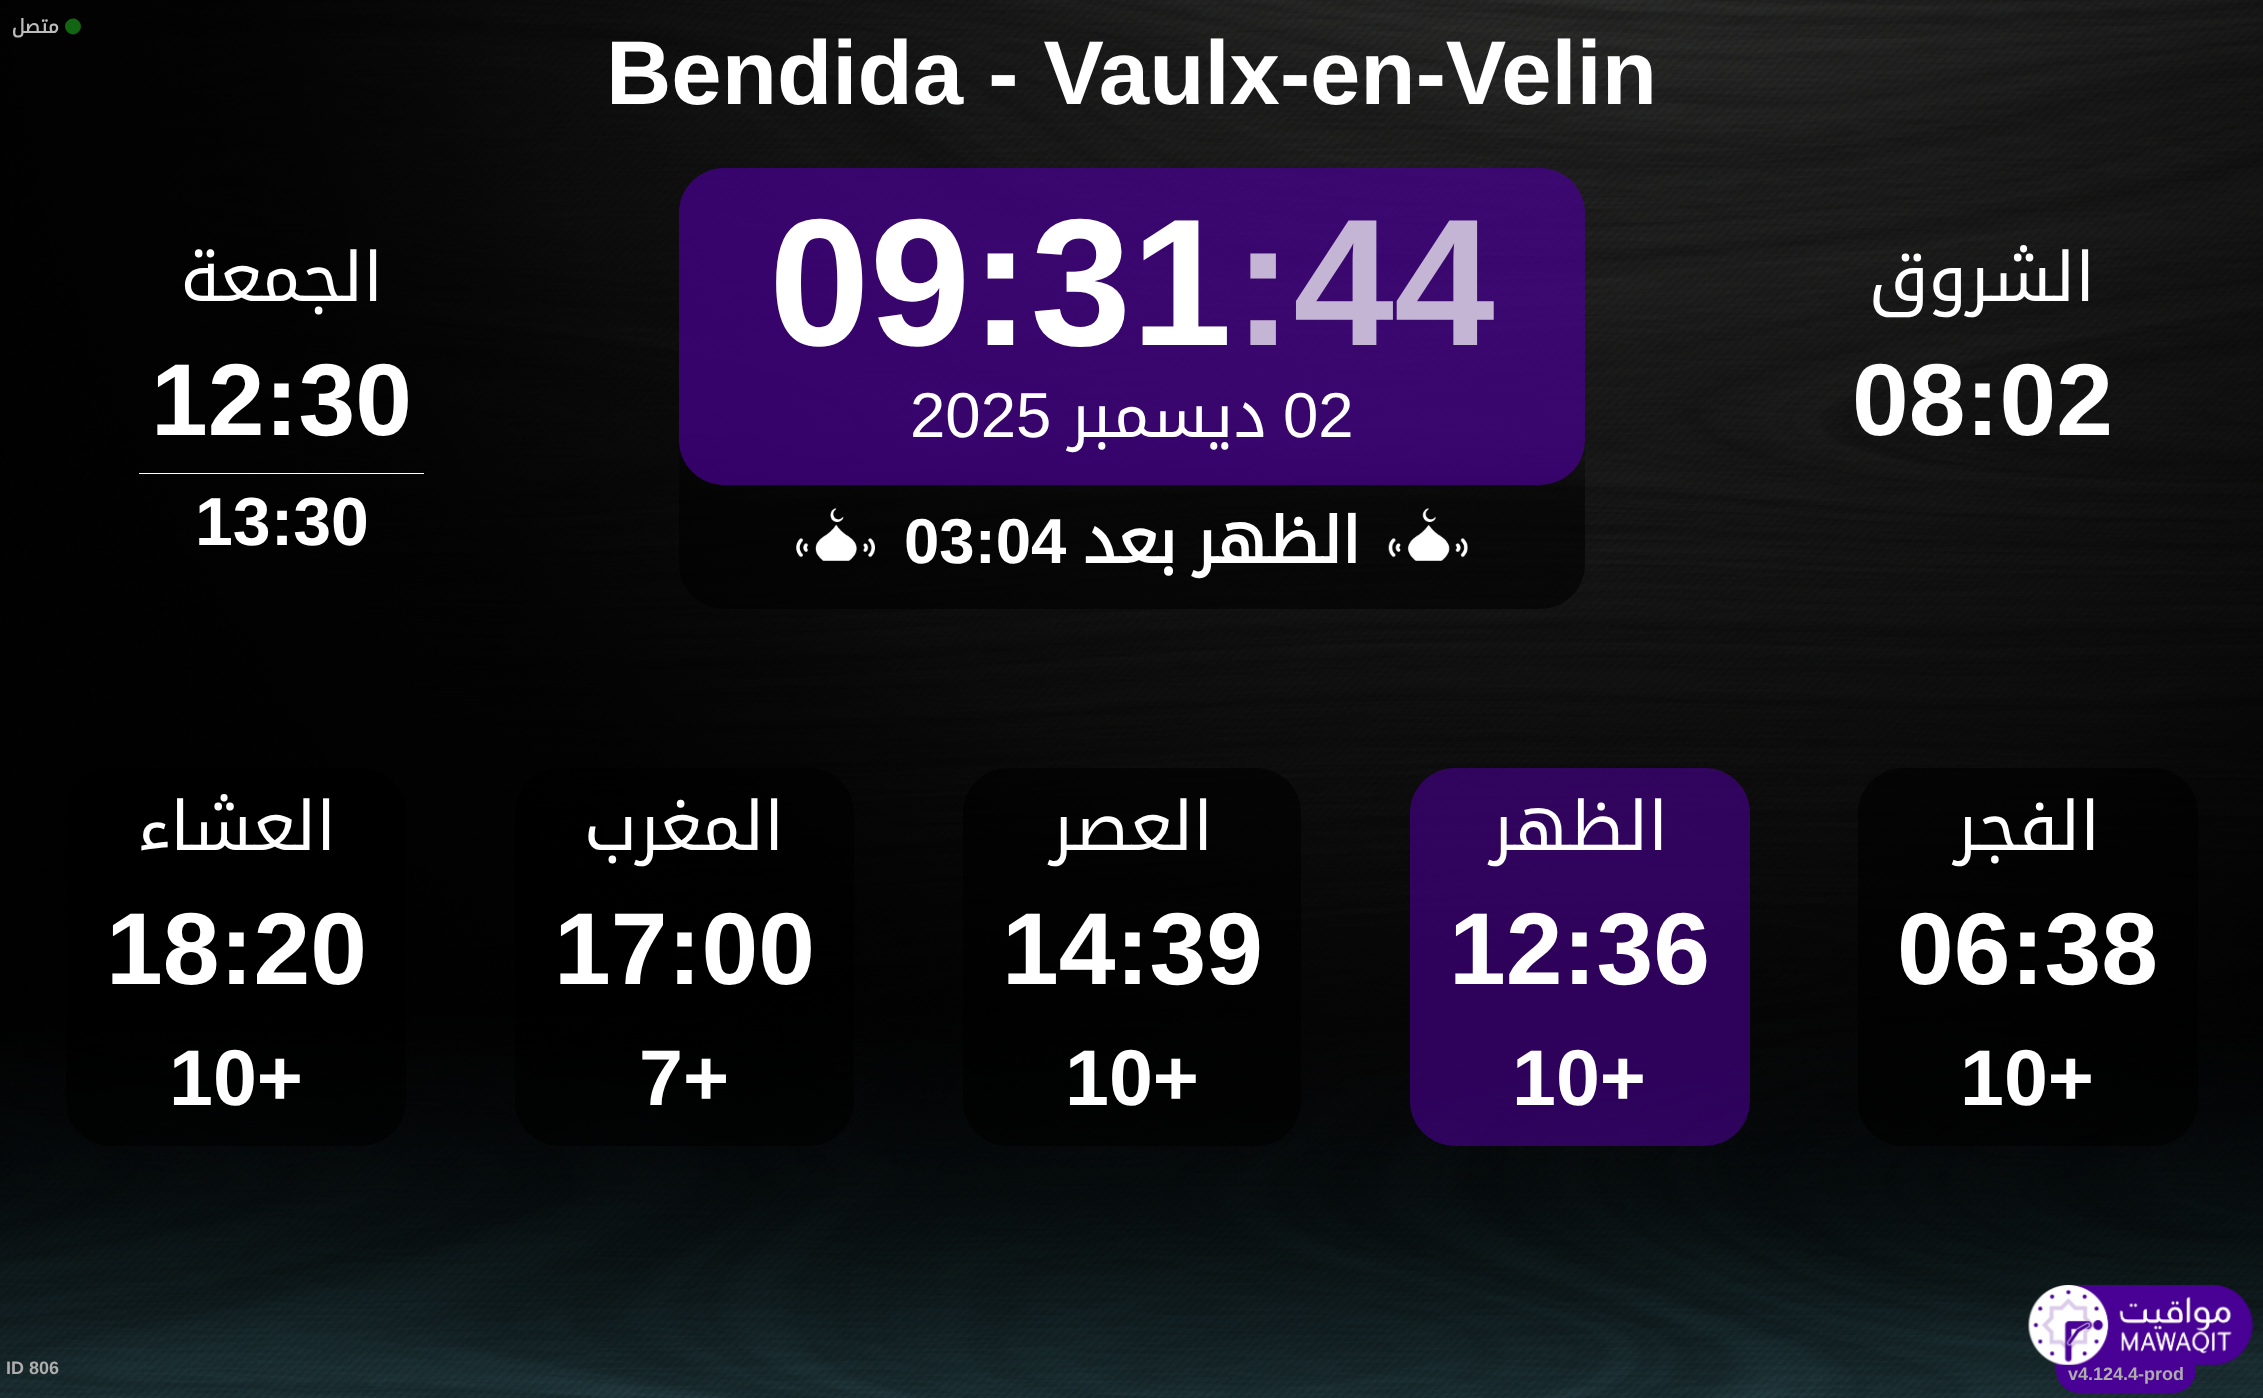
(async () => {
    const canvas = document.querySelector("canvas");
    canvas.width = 2263;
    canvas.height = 1398;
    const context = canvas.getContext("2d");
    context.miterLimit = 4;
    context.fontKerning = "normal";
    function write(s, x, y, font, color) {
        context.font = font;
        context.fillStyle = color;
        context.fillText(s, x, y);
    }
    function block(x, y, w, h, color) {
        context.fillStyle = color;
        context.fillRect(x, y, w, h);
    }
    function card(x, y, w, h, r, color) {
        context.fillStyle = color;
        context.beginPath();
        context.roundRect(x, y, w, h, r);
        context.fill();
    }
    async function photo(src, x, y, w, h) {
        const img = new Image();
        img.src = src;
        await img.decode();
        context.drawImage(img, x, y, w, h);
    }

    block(0, 0, 2263, 1398, "rgb(255, 255, 255)");
    await photo("media/1.png", 0, 0, 2263, 1398);
    context.direction = "rtl";
    write("متصل", 59, 33, "bold 19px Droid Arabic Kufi", "rgb(189, 187, 187)");
    context.fillStyle = "rgb(18, 102, 17)";
    context.beginPath();
    context.moveTo(67.5, 21);
    context.bezierCurveTo(75, 13.5, 86, 24.5, 78.5, 32);
    context.bezierCurveTo(71.5, 39.5, 60, 28, 67.5, 21);
    context.closePath();
    context.fill();
    context.direction = "ltr";
    write("Bendida - Vaulx-en-Velin", 606, 104, "bold 90.5px Liberation Sans", "rgb(255, 255, 255)");
    context.direction = "rtl";
    write("الجمعة", 383, 301, "68px Droid Arabic Kufi", "rgb(255, 255, 255)");
    context.direction = "ltr";
    write("12:30", 151, 435, "bold 102px Liberation Sans", "rgb(255, 255, 255)");
    block(139, 473, 285, 1, "rgb(255, 255, 255)");
    write("13:30", 195, 545, "bold 68px Liberation Sans", "rgb(255, 255, 255)");
    card(679, 168, 906, 317, 45, "rgba(73, 0, 148, 0.7)");
    write("09:31", 769, 345, "bold 181px Liberation Sans", "rgb(255, 255, 255)");
    write(":44", 1233, 345, "bold 181px Liberation Sans", "rgb(196, 181, 212)");
    write("2025", 910, 437, "63.5px Liberation Sans", "rgb(255, 255, 255)");
    context.direction = "rtl";
    write("ديسمبر", 1266, 437, "63.5px Droid Arabic Kufi", "rgb(255, 255, 255)");
    context.direction = "ltr";
    write("02", 1283, 437, "63.5px Liberation Sans", "rgb(255, 255, 255)");
    await photo("media/2.png", 796, 508, 79, 53);
    write("03:04", 904, 563, "bold 63.5px Liberation Sans", "rgb(255, 255, 255)");
    context.direction = "rtl";
    write("بعد", 1176, 563, "bold 63.5px Droid Arabic Kufi", "rgb(255, 255, 255)");
    write("الظهر", 1360, 563, "bold 63.5px Droid Arabic Kufi", "rgb(255, 255, 255)");
    await photo("media/3.png", 1388, 508, 80, 53);
    write("الشروق", 2095, 301, "68px Droid Arabic Kufi", "rgb(255, 255, 255)");
    context.direction = "ltr";
    write("08:02", 1852, 435, "bold 102px Liberation Sans", "rgb(255, 255, 255)");
    card(66, 768, 340, 378, 45, "rgba(0, 0, 0, 0.6)");
    context.direction = "rtl";
    write("العشاء", 336, 850, "68px Droid Arabic Kufi", "rgb(255, 255, 255)");
    context.direction = "ltr";
    write("18:20", 106, 984, "bold 102px Liberation Sans", "rgb(255, 255, 255)");
    write("10+", 169, 1105, "bold 79px Liberation Sans", "rgb(255, 255, 255)");
    card(515, 768, 339, 378, 45, "rgba(0, 0, 0, 0.6)");
    context.direction = "rtl";
    write("المغرب", 784, 850, "68px Droid Arabic Kufi", "rgb(255, 255, 255)");
    context.direction = "ltr";
    write("17:00", 554, 984, "bold 102px Liberation Sans", "rgb(255, 255, 255)");
    write("7+", 639, 1105, "bold 79px Liberation Sans", "rgb(255, 255, 255)");
    card(963, 768, 338, 378, 45, "rgba(0, 0, 0, 0.6)");
    context.direction = "rtl";
    write("العصر", 1213, 850, "68px Droid Arabic Kufi", "rgb(255, 255, 255)");
    context.direction = "ltr";
    write("14:39", 1002, 984, "bold 102px Liberation Sans", "rgb(255, 255, 255)");
    write("10+", 1065, 1105, "bold 79px Liberation Sans", "rgb(255, 255, 255)");
    card(1410, 768, 340, 378, 45, "rgba(73, 0, 148, 0.6)");
    context.direction = "rtl";
    write("الظهر", 1668, 850, "68px Droid Arabic Kufi", "rgb(255, 255, 255)");
    context.direction = "ltr";
    write("12:36", 1449, 984, "bold 102px Liberation Sans", "rgb(255, 255, 255)");
    write("10+", 1512, 1105, "bold 79px Liberation Sans", "rgb(255, 255, 255)");
    card(1858, 768, 340, 378, 45, "rgba(0, 0, 0, 0.6)");
    context.direction = "rtl";
    write("الفجر", 2100, 850, "68px Droid Arabic Kufi", "rgb(255, 255, 255)");
    context.direction = "ltr";
    write("06:38", 1897, 984, "bold 102px Liberation Sans", "rgb(255, 255, 255)");
    write("10+", 1960, 1105, "bold 79px Liberation Sans", "rgb(255, 255, 255)");
    context.fillStyle = "rgb(73, 0, 148)";
    context.beginPath();
    context.roundRect(2056, 1358, 140, 35, [0, 0, 23, 23]);
    context.fill();
    await photo("media/4.png", 2028, 1285, 225, 80);
    write("ID 806", 6, 1374, "bold 18px Liberation Sans", "rgb(173, 173, 173)");
    write("v4.124.4-prod", 2068, 1380, "bold 18px Liberation Sans", "rgb(173, 173, 173)");
})();
